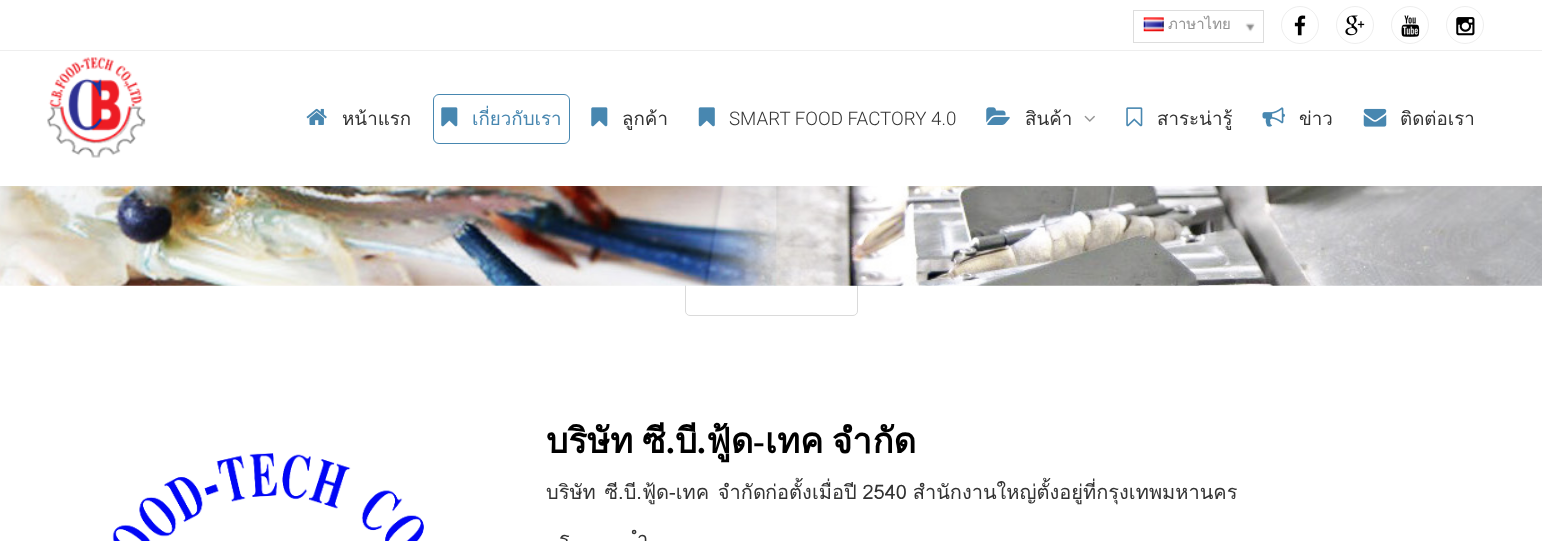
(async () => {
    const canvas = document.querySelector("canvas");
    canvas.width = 1542;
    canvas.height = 541;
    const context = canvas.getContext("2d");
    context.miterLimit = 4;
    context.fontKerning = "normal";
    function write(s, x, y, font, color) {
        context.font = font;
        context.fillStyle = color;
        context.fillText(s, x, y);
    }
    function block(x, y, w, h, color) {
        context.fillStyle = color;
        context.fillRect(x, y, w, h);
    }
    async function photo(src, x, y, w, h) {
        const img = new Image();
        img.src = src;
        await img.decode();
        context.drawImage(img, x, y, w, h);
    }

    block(0, 0, 1542, 541, "rgb(255, 255, 255)");
    block(0, 50, 1542, 1, "rgb(238, 238, 238)");
    context.strokeStyle = "rgb(221, 221, 221)";
    context.strokeRect(1133.5, 10.5, 130, 32);
    await photo("media/1.png", 1143, 17, 21, 15);
    write("ภาษาไทย", 1168, 29, "15px Loma", "rgb(148, 148, 148)");
    await photo("media/2.png", 1245, 23, 10, 9);
    context.beginPath();
    context.arc(1300, 25, 18.5, 0, Math.PI * 2);
    context.strokeStyle = "rgb(238, 238, 238)";
    context.stroke();
    await photo("media/3.png", 1294, 15, 12, 21);
    context.beginPath();
    context.arc(1355, 25, 18.5, 0, Math.PI * 2);
    context.stroke();
    await photo("media/4.png", 1345, 15, 20, 21);
    context.beginPath();
    context.arc(1410, 25, 18.5, 0, Math.PI * 2);
    context.stroke();
    await photo("media/5.png", 1401, 15, 19, 22);
    context.beginPath();
    context.arc(1465, 25, 18.5, 0, Math.PI * 2);
    context.stroke();
    await photo("media/6.png", 1456, 17, 19, 19);
    await photo("media/7.png", 47, 57, 99, 101);
    await photo("media/8.png", 306, 108, 21, 17);
    write("หน้าแรก", 342, 125, "18.75px Loma", "rgb(51, 51, 51)");
    await photo("media/9.png", 441, 107, 17, 20);
    context.beginPath();
    context.roundRect(433.5, 94.5, 136, 49, 5.5);
    context.strokeStyle = "rgb(72, 135, 176)";
    context.stroke();
    write("เกี่ยวกับเรา", 472, 125, "18.75px Loma", "rgb(72, 135, 176)");
    await photo("media/9.png", 591, 107, 17, 20);
    write("ลูกค้า", 622, 125, "18.75px Loma", "rgb(51, 51, 51)");
    await photo("media/10.png", 698, 107, 17, 20);
    write("SMART FOOD FACTORY 4.0", 729, 125, "300 18.75px Roboto", "rgb(51, 51, 51)");
    await photo("media/11.png", 986, 107, 24, 18);
    write("สินค้า", 1025, 125, "18.75px Loma", "rgb(51, 51, 51)");
    await photo("media/12.png", 1084, 115, 11, 7);
    await photo("media/13.png", 1126, 107, 17, 20);
    write("สาระน่ารู้", 1157, 125, "18.75px Loma", "rgb(51, 51, 51)");
    await photo("media/14.png", 1262, 107, 23, 20);
    write("ข่าว", 1299, 125, "18.75px Loma", "rgb(51, 51, 51)");
    await photo("media/15.png", 1363, 108, 24, 19);
    write("ติดต่อเรา", 1400, 125, "18.75px Loma", "rgb(51, 51, 51)");
    context.beginPath();
    context.roundRect(685.5, 251.5, 172, 64, 4.5);
    context.strokeStyle = "rgb(218, 218, 218)";
    context.stroke();
    await photo("media/16.png", 0, 186, 1542, 100);
    await photo("media/17.png", 112, 453, 312, 88);
    context.wordSpacing = "-3px";
    write("บริษัท ซี", 546, 453, "bold 35px Loma", "rgb(0, 0, 0)");
    context.wordSpacing = "0px";
    write(".", 666, 453, "bold 35px Liberation Serif", "rgb(0, 0, 0)");
    write("บี", 675, 453, "bold 35px Loma", "rgb(0, 0, 0)");
    write(".", 697, 453, "bold 35px Liberation Serif", "rgb(0, 0, 0)");
    write("ฟู้ด", 706, 453, "bold 35px Loma", "rgb(0, 0, 0)");
    write("-", 753, 453, "bold 35px Liberation Serif", "rgb(0, 0, 0)");
    context.wordSpacing = "-3px";
    write("เทค จำกัด", 765, 453, "bold 35px Loma", "rgb(0, 0, 0)");
    context.wordSpacing = "2px";
    write("บริษัท ซี.บี.ฟู้ด-เทค จำกัด", 546, 499, "20px Loma", "rgb(51, 51, 51)");
    context.wordSpacing = "0px";
    write("ก่อตั้ง", 765, 499, "20px Loma", "rgb(51, 51, 51)");
    context.wordSpacing = "-1px";
    write("เมื่อปี 2540 สำนักงานใหญ่ตั้งอยู่ที่กรุงเทพมหานคร", 812, 499, "20px Loma", "rgb(51, 51, 51)");
    context.wordSpacing = "11px";
    write("ร", 559, 546, "20px Loma", "rgb(51, 51, 51)");
    write("ำ", 637, 546, "20px Loma", "rgb(51, 51, 51)");
})();
